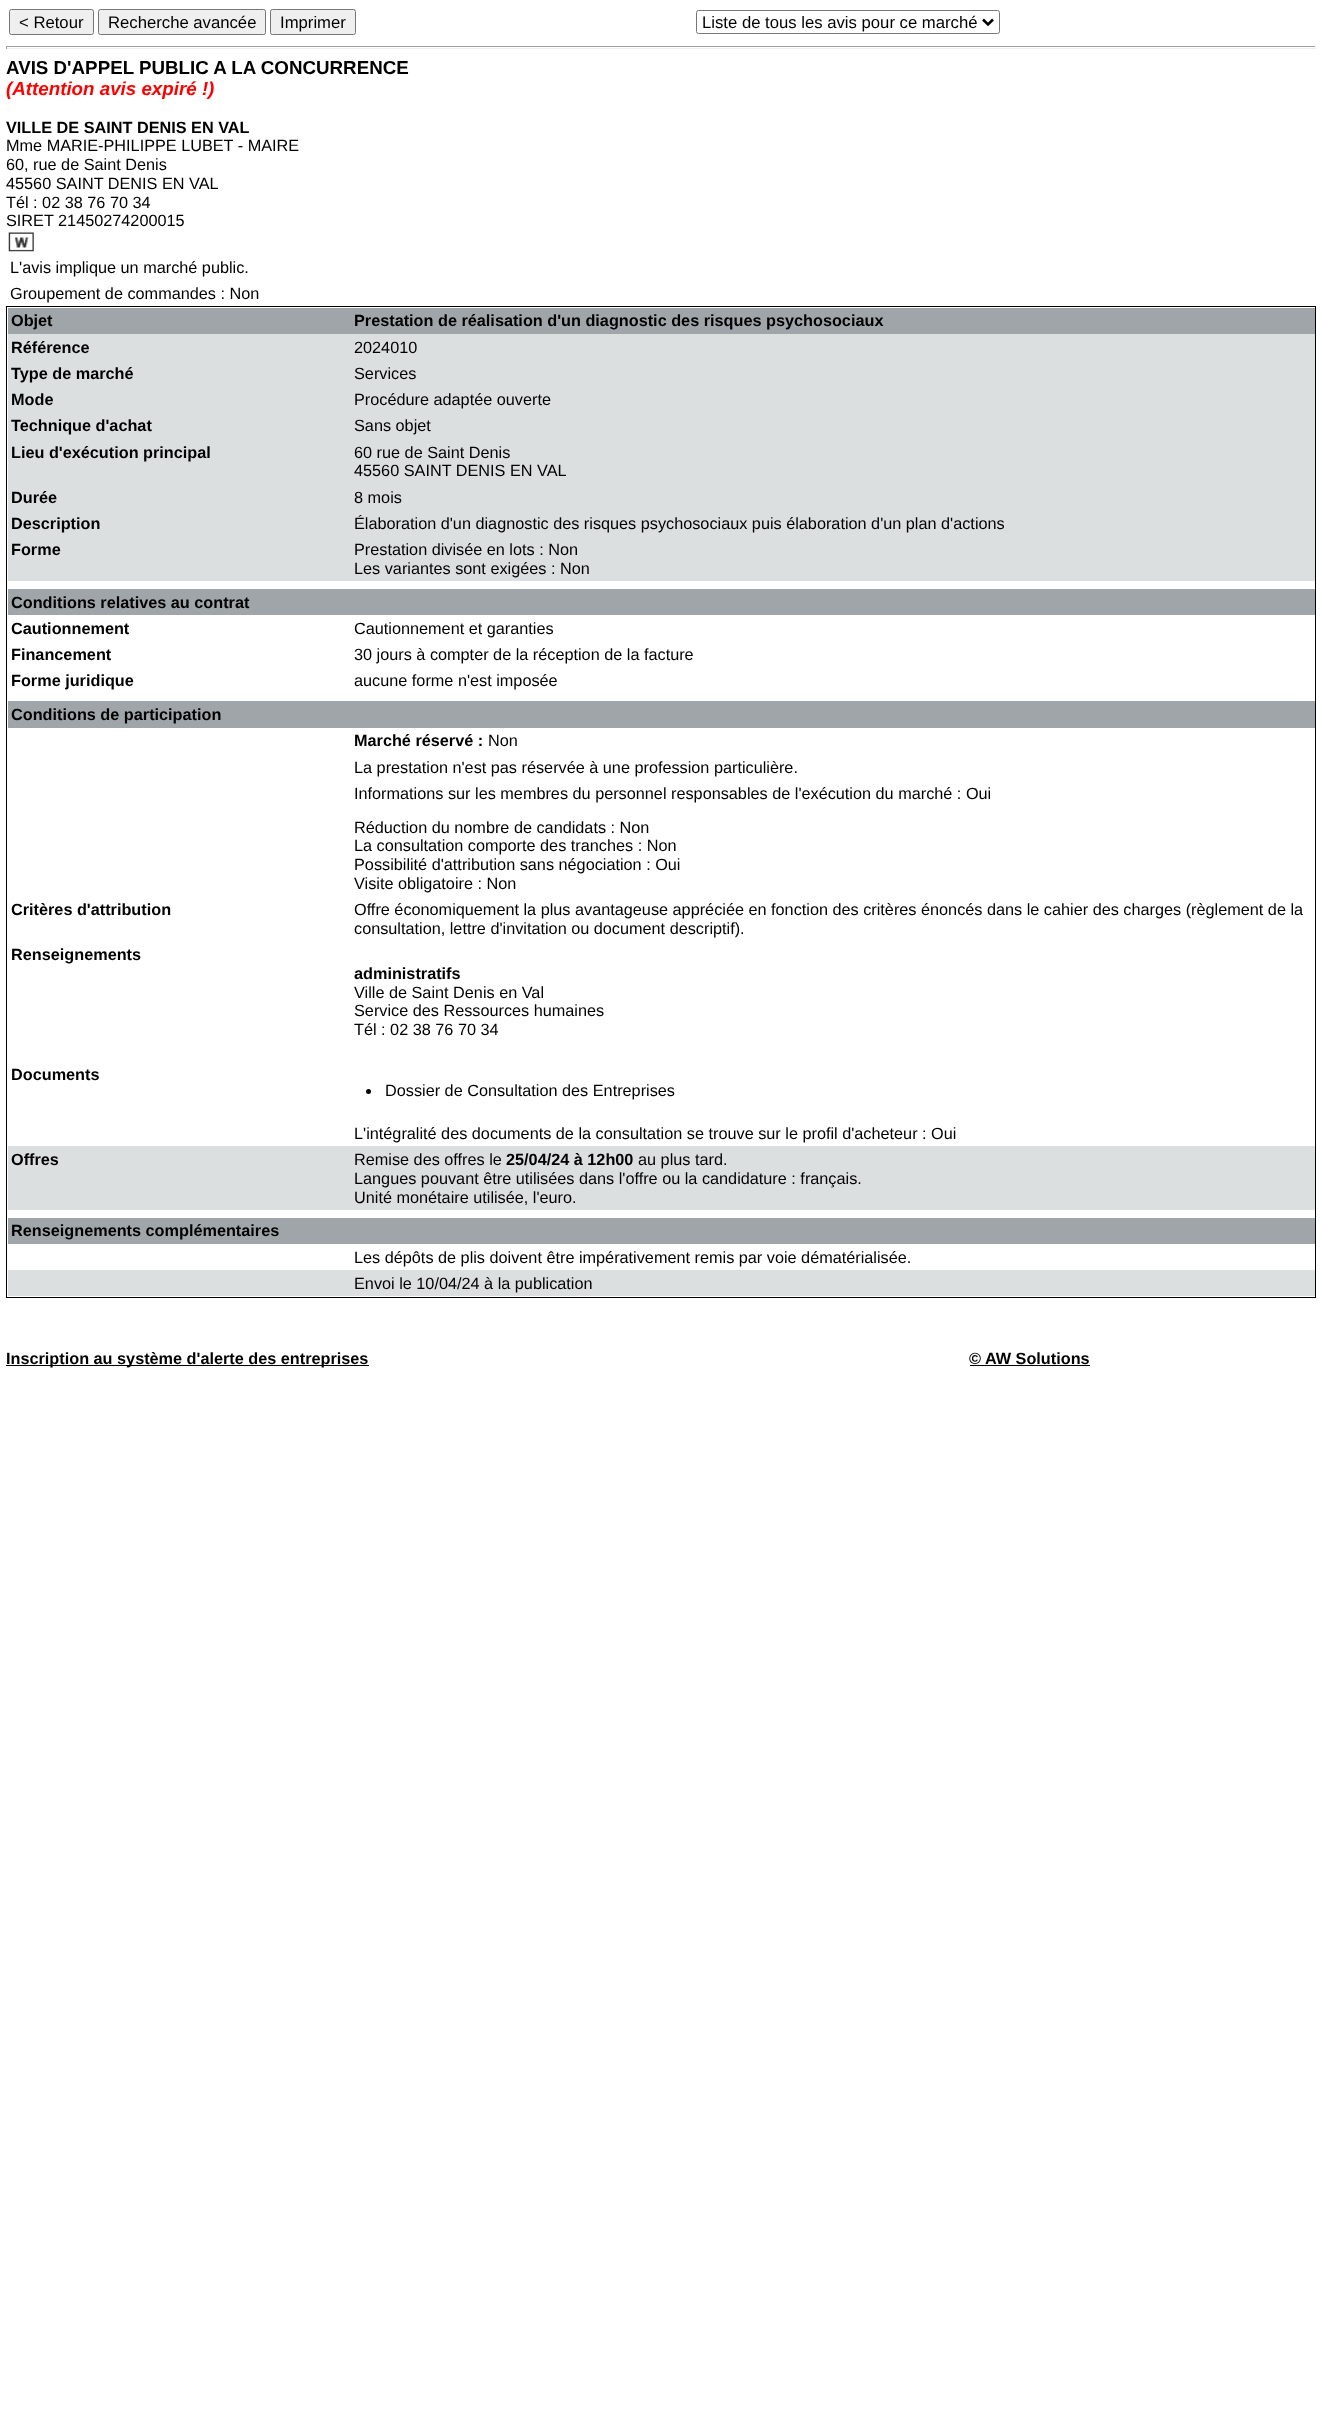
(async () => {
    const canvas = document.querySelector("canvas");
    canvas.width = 1322;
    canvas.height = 2423;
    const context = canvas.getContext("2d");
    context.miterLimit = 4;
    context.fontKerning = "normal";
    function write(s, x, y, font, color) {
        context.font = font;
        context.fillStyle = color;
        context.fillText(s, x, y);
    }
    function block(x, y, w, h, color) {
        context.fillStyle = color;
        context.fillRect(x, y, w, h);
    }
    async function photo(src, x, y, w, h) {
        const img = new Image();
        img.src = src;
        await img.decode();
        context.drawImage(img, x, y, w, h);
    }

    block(0, 0, 1322, 2423, "rgb(255, 255, 255)");
    context.fillStyle = "rgb(239, 239, 239)";
    context.beginPath();
    context.roundRect(9.5, 9.5, 84, 25, 2);
    context.fill();
    context.strokeStyle = "rgb(118, 118, 118)";
    context.stroke();
    write("< Retour", 19, 28, "16.7px Liberation Sans", "rgb(0, 0, 0)");
    context.fillStyle = "rgb(239, 239, 239)";
    context.beginPath();
    context.roundRect(98.5, 9.5, 167, 25, 2);
    context.fill();
    context.stroke();
    write("Recherche avancée", 108, 28, "16.7px Liberation Sans", "rgb(0, 0, 0)");
    context.fillStyle = "rgb(239, 239, 239)";
    context.beginPath();
    context.roundRect(270.5, 9.5, 85, 25, 2);
    context.fill();
    context.stroke();
    write("Imprimer", 280, 28, "16.7px Liberation Sans", "rgb(0, 0, 0)");
    context.beginPath();
    context.roundRect(696.5, 10.5, 303, 23, 2);
    context.stroke();
    context.beginPath();
    context.moveTo(983, 19.5);
    context.lineTo(988, 24.5);
    context.lineTo(993, 19.5);
    context.strokeStyle = "rgb(0, 0, 0)";
    context.lineWidth = 2.5;
    context.stroke();
    write("Liste de tous les avis pour ce marché", 702, 28, "16.7px Liberation Sans", "rgb(0, 0, 0)");
    block(6, 46, 1310, 1, "rgb(159, 159, 159)");
    block(1315, 46, 1, 3, "rgb(238, 238, 238)");
    block(6, 48, 1310, 1, "rgb(238, 238, 238)");
    block(6, 46, 1, 3, "rgb(159, 159, 159)");
    write("AVIS D'APPEL PUBLIC A LA CONCURRENCE", 6, 74, "bold 18.75px Liberation Sans", "rgb(0, 0, 0)");
    write("(Attention avis expiré !)", 6, 95, "italic bold 18.75px Liberation Sans", "rgb(255, 0, 0)");
    write("VILLE DE SAINT DENIS EN VAL", 6, 133, "bold 16.25px Liberation Sans", "rgb(0, 0, 0)");
    write("Mme MARIE-PHILIPPE LUBET - MAIRE", 6, 151, "16.25px Liberation Sans", "rgb(0, 0, 0)");
    write("60, rue de Saint Denis", 6, 170, "16.25px Liberation Sans", "rgb(0, 0, 0)");
    write("45560 SAINT DENIS EN VAL", 6, 189, "16.25px Liberation Sans", "rgb(0, 0, 0)");
    write("Tél : 02 38 76 70 34", 6, 208, "16.25px Liberation Sans", "rgb(0, 0, 0)");
    write("SIRET 21450274200015", 6, 226, "16.25px Liberation Sans", "rgb(0, 0, 0)");
    await photo("media/1.png", 8, 232, 26, 20);
    write("L'avis implique un marché public.", 10, 273, "16.25px Liberation Sans", "rgb(0, 0, 0)");
    write("Groupement de commandes : Non", 10, 299, "16.25px Liberation Sans", "rgb(0, 0, 0)");
    context.lineWidth = 1;
    context.strokeRect(6.5, 306.5, 1309, 991);
    block(8, 308, 1307, 26, "rgb(159, 165, 168)");
    write("Objet", 11, 326, "bold 16.25px Liberation Sans", "rgb(0, 0, 0)");
    write("Prestation de réalisation d'un diagnostic des risques psychosociaux", 354, 326, "bold 16.25px Liberation Sans", "rgb(0, 0, 0)");
    block(8, 334, 1307, 26, "rgb(219, 223, 224)");
    write("Référence", 11, 353, "bold 16.25px Liberation Sans", "rgb(0, 0, 0)");
    write("2024010", 354, 353, "16.25px Liberation Sans", "rgb(0, 0, 0)");
    block(8, 360, 1307, 26, "rgb(219, 223, 224)");
    write("Type de marché", 11, 379, "bold 16.25px Liberation Sans", "rgb(0, 0, 0)");
    write("Services", 354, 379, "16.25px Liberation Sans", "rgb(0, 0, 0)");
    block(8, 386, 1307, 27, "rgb(219, 223, 224)");
    write("Mode", 11, 405, "bold 16.25px Liberation Sans", "rgb(0, 0, 0)");
    write("Procédure adaptée ouverte", 354, 405, "16.25px Liberation Sans", "rgb(0, 0, 0)");
    block(8, 413, 1307, 26, "rgb(219, 223, 224)");
    write("Technique d'achat", 11, 431, "bold 16.25px Liberation Sans", "rgb(0, 0, 0)");
    write("Sans objet", 354, 431, "16.25px Liberation Sans", "rgb(0, 0, 0)");
    block(8, 439, 1307, 45, "rgb(219, 223, 224)");
    write("Lieu d'exécution principal", 11, 458, "bold 16.25px Liberation Sans", "rgb(0, 0, 0)");
    write("60 rue de Saint Denis", 354, 458, "16.25px Liberation Sans", "rgb(0, 0, 0)");
    write("45560 SAINT DENIS EN VAL", 354, 476, "16.25px Liberation Sans", "rgb(0, 0, 0)");
    block(8, 484, 1307, 26, "rgb(219, 223, 224)");
    write("Durée", 11, 503, "bold 16.25px Liberation Sans", "rgb(0, 0, 0)");
    write("8 mois", 354, 503, "16.25px Liberation Sans", "rgb(0, 0, 0)");
    block(8, 510, 1307, 26, "rgb(219, 223, 224)");
    write("Description", 11, 529, "bold 16.25px Liberation Sans", "rgb(0, 0, 0)");
    write("Élaboration d'un diagnostic des risques psychosociaux puis élaboration d'un plan d'actions", 354, 529, "16.25px Liberation Sans", "rgb(0, 0, 0)");
    block(8, 536, 1307, 45, "rgb(219, 223, 224)");
    write("Forme", 11, 555, "bold 16.25px Liberation Sans", "rgb(0, 0, 0)");
    write("Prestation divisée en lots : Non", 354, 555, "16.25px Liberation Sans", "rgb(0, 0, 0)");
    write("Les variantes sont exigées : Non", 354, 574, "16.25px Liberation Sans", "rgb(0, 0, 0)");
    block(8, 589, 1307, 26, "rgb(159, 165, 168)");
    write("Conditions relatives au contrat", 11, 608, "bold 16.25px Liberation Sans", "rgb(0, 0, 0)");
    write("Cautionnement", 11, 634, "bold 16.25px Liberation Sans", "rgb(0, 0, 0)");
    write("Cautionnement et garanties", 354, 634, "16.25px Liberation Sans", "rgb(0, 0, 0)");
    write("Financement", 11, 660, "bold 16.25px Liberation Sans", "rgb(0, 0, 0)");
    write("30 jours à compter de la réception de la facture", 354, 660, "16.25px Liberation Sans", "rgb(0, 0, 0)");
    write("Forme juridique", 11, 686, "bold 16.25px Liberation Sans", "rgb(0, 0, 0)");
    write("aucune forme n'est imposée", 354, 686, "16.25px Liberation Sans", "rgb(0, 0, 0)");
    block(8, 701, 1307, 27, "rgb(159, 165, 168)");
    write("Conditions de participation", 11, 720, "bold 16.25px Liberation Sans", "rgb(0, 0, 0)");
    write("Marché réservé :", 354, 746, "bold 16.25px Liberation Sans", "rgb(0, 0, 0)");
    write("Non", 488, 746, "16.25px Liberation Sans", "rgb(0, 0, 0)");
    write("La prestation n'est pas réservée à une profession particulière.", 354, 773, "16.25px Liberation Sans", "rgb(0, 0, 0)");
    write("Informations sur les membres du personnel responsables de l'exécution du marché : Oui", 354, 799, "16.25px Liberation Sans", "rgb(0, 0, 0)");
    write("Réduction du nombre de candidats : Non", 354, 833, "16.25px Liberation Sans", "rgb(0, 0, 0)");
    write("La consultation comporte des tranches : Non", 354, 851, "16.25px Liberation Sans", "rgb(0, 0, 0)");
    write("Possibilité d'attribution sans négociation : Oui", 354, 870, "16.25px Liberation Sans", "rgb(0, 0, 0)");
    write("Visite obligatoire : Non", 354, 889, "16.25px Liberation Sans", "rgb(0, 0, 0)");
    write("Critères d'attribution", 11, 915, "bold 16.25px Liberation Sans", "rgb(0, 0, 0)");
    write("Offre économiquement la plus avantageuse appréciée en fonction des critères énoncés dans le cahier des charges (règlement de la", 354, 915, "16.25px Liberation Sans", "rgb(0, 0, 0)");
    write("consultation, lettre d'invitation ou document descriptif).", 354, 934, "16.25px Liberation Sans", "rgb(0, 0, 0)");
    write("Renseignements", 11, 960, "bold 16.25px Liberation Sans", "rgb(0, 0, 0)");
    write("administratifs", 354, 979, "bold 16.25px Liberation Sans", "rgb(0, 0, 0)");
    write("Ville de Saint Denis en Val", 354, 998, "16.25px Liberation Sans", "rgb(0, 0, 0)");
    write("Service des Ressources humaines", 354, 1016, "16.25px Liberation Sans", "rgb(0, 0, 0)");
    write("Tél : 02 38 76 70 34", 354, 1035, "16.25px Liberation Sans", "rgb(0, 0, 0)");
    write("Documents", 11, 1080, "bold 16.25px Liberation Sans", "rgb(0, 0, 0)");
    context.beginPath();
    context.arc(368.5, 1091.5, 2.5, 0, Math.PI * 2);
    context.fill();
    write("Dossier de Consultation des Entreprises", 385, 1096, "16.25px Liberation Sans", "rgb(0, 0, 0)");
    write("L'intégralité des documents de la consultation se trouve sur le profil d'acheteur : Oui", 354, 1139, "16.25px Liberation Sans", "rgb(0, 0, 0)");
    block(8, 1146, 1307, 64, "rgb(219, 223, 224)");
    write("Offres", 11, 1165, "bold 16.25px Liberation Sans", "rgb(0, 0, 0)");
    write("Remise des offres le", 354, 1165, "16.25px Liberation Sans", "rgb(0, 0, 0)");
    write("25/04/24 à 12h00", 506, 1165, "bold 16.25px Liberation Sans", "rgb(0, 0, 0)");
    write("au plus tard.", 638, 1165, "16.25px Liberation Sans", "rgb(0, 0, 0)");
    write("Langues pouvant être utilisées dans l'offre ou la candidature : français.", 354, 1184, "16.25px Liberation Sans", "rgb(0, 0, 0)");
    write("Unité monétaire utilisée, l'euro.", 354, 1203, "16.25px Liberation Sans", "rgb(0, 0, 0)");
    block(8, 1218, 1307, 26, "rgb(159, 165, 168)");
    write("Renseignements complémentaires", 11, 1236, "bold 16.25px Liberation Sans", "rgb(0, 0, 0)");
    write("Les dépôts de plis doivent être impérativement remis par voie dématérialisée.", 354, 1263, "16.25px Liberation Sans", "rgb(0, 0, 0)");
    block(8, 1270, 1307, 26, "rgb(219, 223, 224)");
    write("Envoi le 10/04/24 à la publication", 354, 1289, "16.25px Liberation Sans", "rgb(0, 0, 0)");
    block(6, 1365, 363, 1, "rgb(0, 0, 0)");
    write("Inscription au système d'alerte des entreprises", 6, 1364, "bold 16.25px Liberation Sans", "rgb(0, 0, 0)");
    write("© AW Solutions", 969, 1364, "bold 16.25px Liberation Sans", "rgb(0, 0, 0)");
    block(970, 1365, 120, 1, "rgb(0, 0, 0)");
})();
